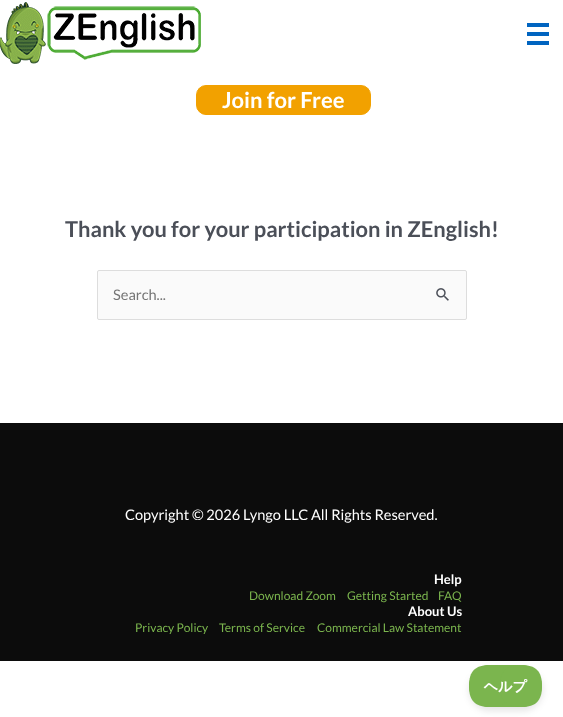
(async () => {
    const canvas = document.querySelector("canvas");
    canvas.width = 563;
    canvas.height = 717;
    const context = canvas.getContext("2d");
    context.miterLimit = 4;
    context.fontKerning = "normal";
    function write(s, x, y, font, color) {
        context.font = font;
        context.fillStyle = color;
        context.fillText(s, x, y);
    }
    function block(x, y, w, h, color) {
        context.fillStyle = color;
        context.fillRect(x, y, w, h);
    }
    async function photo(src, x, y, w, h) {
        const img = new Image();
        img.src = src;
        await img.decode();
        context.drawImage(img, x, y, w, h);
    }

    block(0, 0, 563, 717, "rgb(255, 255, 255)");
    await photo("media/1.png", 0, 2, 201, 62);
    block(527, 23, 22, 4, "rgb(0, 100, 192)");
    block(527, 32, 22, 4, "rgb(0, 100, 192)");
    block(527, 41, 22, 4, "rgb(0, 100, 192)");
    context.fillStyle = "rgb(242, 161, 0)";
    context.beginPath();
    context.roundRect(196.5, 85.5, 174, 29, 9.5);
    context.fill();
    context.strokeStyle = "rgb(242, 161, 0)";
    context.stroke();
    write("Join for Free", 222, 108, "bold 22px Lato", "rgb(255, 255, 255)");
    write("Thank you for your participation in ZEnglish!", 65, 237, "bold 21.9px Lato", "rgb(75, 79, 88)");
    context.fillStyle = "rgb(250, 250, 250)";
    context.beginPath();
    context.roundRect(97.5, 270.5, 369, 49, 1.5);
    context.fill();
    context.strokeStyle = "rgb(221, 221, 221)";
    context.stroke();
    write("Search...", 113, 300, "14.6px Lato", "rgb(117, 117, 117)");
    await photo("media/2.png", 436, 288, 13, 13);
    block(0, 423, 563, 238, "rgb(12, 12, 12)");
    write("Copyright © 2026 Lyngo LLC All Rights Reserved.", 125, 520, "14.6px Lato", "rgb(255, 255, 255)");
    write("Help", 434, 584, "bold 13px Lato", "rgb(255, 255, 255)");
    write("Download Zoom", 249, 600, "12px Lato", "rgb(123, 181, 78)");
    write("Getting Started", 347, 600, "12px Lato", "rgb(123, 181, 78)");
    write("FAQ", 438, 600, "12px Lato", "rgb(123, 181, 78)");
    write("About Us", 408, 616, "bold 13px Lato", "rgb(255, 255, 255)");
    write("Privacy Policy", 135, 632, "12px Lato", "rgb(123, 181, 78)");
    write("Terms of Service", 219, 632, "12px Lato", "rgb(123, 181, 78)");
    write("Commercial Law Statement", 317, 632, "12px Lato", "rgb(123, 181, 78)");
    context.fillStyle = "rgba(0, 0, 0, 0.1)";
    context.filter = "blur(3.5px)";
    context.beginPath();
    context.roundRect(469, 669, 74, 42, 21);
    context.fill();
    context.filter = "none";
    await photo("media/3.png", 469, 665, 73, 42);
})();
